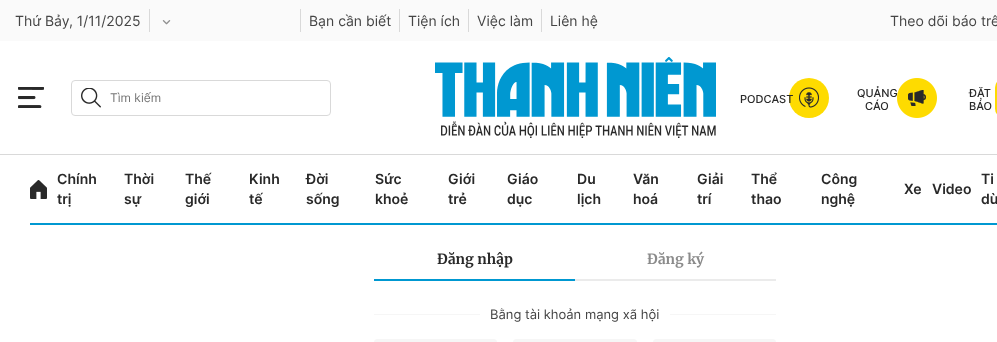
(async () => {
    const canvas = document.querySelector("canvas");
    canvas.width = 997;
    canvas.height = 342;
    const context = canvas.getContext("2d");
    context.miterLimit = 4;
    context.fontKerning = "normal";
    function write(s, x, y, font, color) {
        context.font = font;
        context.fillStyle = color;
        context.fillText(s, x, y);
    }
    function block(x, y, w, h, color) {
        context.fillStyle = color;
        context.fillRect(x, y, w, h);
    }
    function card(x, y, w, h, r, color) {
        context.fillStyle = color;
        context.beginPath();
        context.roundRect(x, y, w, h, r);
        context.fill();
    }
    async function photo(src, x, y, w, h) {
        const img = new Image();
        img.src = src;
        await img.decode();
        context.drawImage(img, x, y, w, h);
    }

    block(0, 0, 997, 342, "rgb(255, 255, 255)");
    block(0, 0, 997, 41, "rgb(250, 250, 250)");
    block(149, 9, 1, 23, "rgb(217, 217, 217)");
    write("Thứ Bảy, 1/11/2025", 15, 26, "14px Inter", "rgb(69, 69, 69)");
    block(300, 9, 1, 23, "rgb(217, 217, 217)");
    await photo("media/1.png", 162, 20, 9, 5);
    block(399, 9, 1, 23, "rgb(217, 217, 217)");
    write("Bạn cần biết", 309, 26, "14px Inter", "rgb(69, 69, 69)");
    block(468, 9, 1, 23, "rgb(217, 217, 217)");
    write("Tiện ích", 408, 26, "14px Inter", "rgb(69, 69, 69)");
    block(541, 9, 1, 23, "rgb(217, 217, 217)");
    write("Việc làm", 477, 26, "14px Inter", "rgb(69, 69, 69)");
    write("Liên hệ", 550, 26, "14px Inter", "rgb(69, 69, 69)");
    write("Theo dõi báo trê", 890, 26, "14px Inter", "rgb(69, 69, 69)");
    block(0, 154, 997, 1, "rgb(217, 217, 217)");
    await photo("media/2.png", 18, 87, 26, 21);
    context.beginPath();
    context.roundRect(71.5, 80.5, 259, 35, 3.5);
    context.strokeStyle = "rgb(217, 217, 217)";
    context.stroke();
    await photo("media/3.png", 81, 88, 20, 20);
    write("Tìm kiếm", 110, 102, "12px Inter", "rgb(117, 117, 117)");
    await photo("media/4.png", 435, 57, 281, 81);
    context.fillStyle = "rgb(254, 219, 0)";
    context.beginPath();
    context.arc(809, 98, 20, 0, Math.PI * 2);
    context.fill();
    write("PODCAST", 740, 103, "500 11px Inter", "rgb(41, 41, 41)");
    await photo("media/5.png", 799, 87, 20, 21);
    write("QUẢNG", 857, 97, "500 11px Inter", "rgb(41, 41, 41)");
    write("CÁO", 865, 110, "500 11px Inter", "rgb(41, 41, 41)");
    await photo("media/6.png", 897, 78, 40, 40);
    write("ĐẶT", 969, 97, "500 11px Inter", "rgb(41, 41, 41)");
    write("BÁO", 969, 110, "500 11px Inter", "rgb(41, 41, 41)");
    card(995, 78, 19, 40, 16.5, "rgb(254, 219, 0)");
    block(30, 223, 967, 2, "rgb(0, 152, 209)");
    await photo("media/7.png", 30, 180, 17, 19);
    write("Chính", 57, 184, "600 14px Inter", "rgb(41, 41, 41)");
    write("trị", 57, 204, "600 14px Inter", "rgb(41, 41, 41)");
    write("Thời", 124, 184, "600 14px Inter", "rgb(41, 41, 41)");
    write("sự", 124, 204, "600 14px Inter", "rgb(41, 41, 41)");
    write("Thế", 185, 184, "600 14px Inter", "rgb(41, 41, 41)");
    write("giới", 185, 204, "600 14px Inter", "rgb(41, 41, 41)");
    write("Kinh", 249, 184, "600 14px Inter", "rgb(41, 41, 41)");
    write("tế", 249, 204, "600 14px Inter", "rgb(41, 41, 41)");
    write("Đời", 306, 184, "600 14px Inter", "rgb(41, 41, 41)");
    write("sống", 306, 204, "600 14px Inter", "rgb(41, 41, 41)");
    write("Sức", 375, 184, "600 14px Inter", "rgb(41, 41, 41)");
    write("khoẻ", 375, 204, "600 14px Inter", "rgb(41, 41, 41)");
    write("Giới", 448, 184, "600 14px Inter", "rgb(41, 41, 41)");
    write("trẻ", 448, 204, "600 14px Inter", "rgb(41, 41, 41)");
    write("Giáo", 507, 184, "600 14px Inter", "rgb(41, 41, 41)");
    write("dục", 507, 204, "600 14px Inter", "rgb(41, 41, 41)");
    write("Du", 577, 184, "600 14px Inter", "rgb(41, 41, 41)");
    write("lịch", 577, 204, "600 14px Inter", "rgb(41, 41, 41)");
    write("Văn", 633, 184, "600 14px Inter", "rgb(41, 41, 41)");
    write("hoá", 633, 204, "600 14px Inter", "rgb(41, 41, 41)");
    write("Giải", 697, 184, "600 14px Inter", "rgb(41, 41, 41)");
    write("trí", 697, 204, "600 14px Inter", "rgb(41, 41, 41)");
    write("Thể", 751, 184, "600 14px Inter", "rgb(41, 41, 41)");
    write("thao", 751, 204, "600 14px Inter", "rgb(41, 41, 41)");
    write("Công", 821, 184, "600 14px Inter", "rgb(41, 41, 41)");
    write("nghệ", 821, 204, "600 14px Inter", "rgb(41, 41, 41)");
    write("Xe", 904, 194, "600 14px Inter", "rgb(41, 41, 41)");
    write("Video", 932, 194, "600 14px Inter", "rgb(41, 41, 41)");
    write("Ti", 981, 184, "600 14px Inter", "rgb(41, 41, 41)");
    write("dù", 981, 204, "600 14px Inter", "rgb(41, 41, 41)");
    block(575, 279, 201, 2, "rgb(235, 235, 235)");
    write("Đăng nhập", 437, 264, "bold 14px Merriweather", "rgb(41, 41, 41)");
    block(374, 279, 201, 2, "rgb(0, 152, 209)");
    write("Đăng ký", 647, 264, "bold 14px Merriweather", "rgb(139, 139, 139)");
    block(374, 314, 106, 1, "rgb(246, 246, 246)");
    write("Bằng tài khoản mạng xã hội", 490, 319, "13px Inter", "rgb(69, 69, 69)");
    block(670, 314, 106, 1, "rgb(246, 246, 246)");
    card(374, 339, 123, 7, 4, "rgb(246, 246, 246)");
    card(513, 339, 124, 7, 4, "rgb(246, 246, 246)");
    card(653, 339, 123, 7, 4, "rgb(246, 246, 246)");
})();
